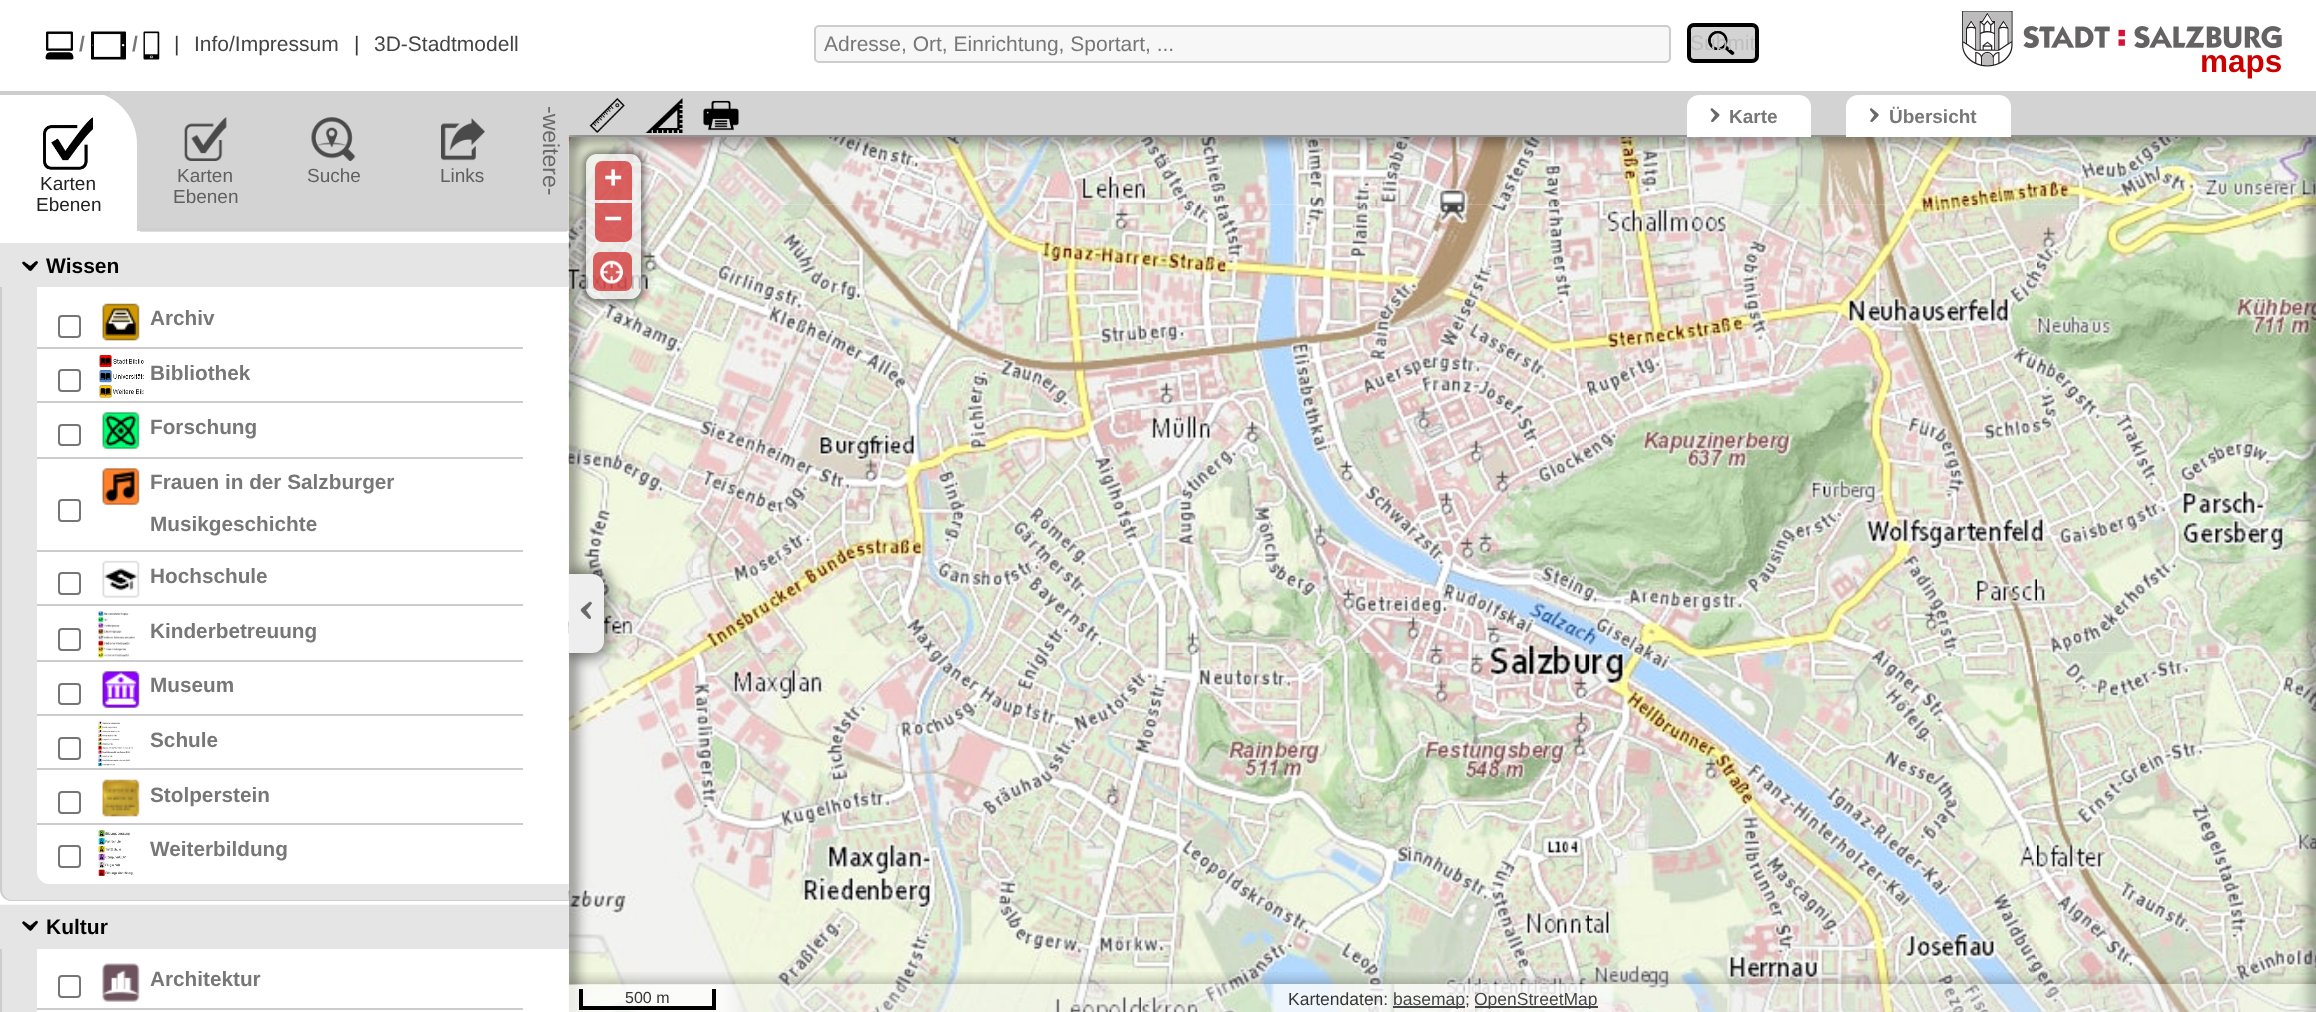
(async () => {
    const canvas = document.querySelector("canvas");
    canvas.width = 2316;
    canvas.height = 1012;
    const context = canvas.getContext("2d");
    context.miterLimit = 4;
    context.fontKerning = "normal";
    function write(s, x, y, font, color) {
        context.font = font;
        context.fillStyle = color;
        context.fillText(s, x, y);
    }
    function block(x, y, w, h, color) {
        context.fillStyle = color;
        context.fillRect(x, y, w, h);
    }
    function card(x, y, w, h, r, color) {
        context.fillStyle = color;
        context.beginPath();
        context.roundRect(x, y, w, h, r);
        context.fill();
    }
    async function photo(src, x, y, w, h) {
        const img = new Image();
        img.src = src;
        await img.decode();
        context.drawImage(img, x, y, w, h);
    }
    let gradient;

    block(0, 0, 2316, 1012, "rgb(255, 255, 255)");
    block(140, 231, 427, 1, "rgb(223, 223, 223)");
    await photo("media/1.png", 45, 31, 29, 29);
    write("/", 79, 51, "bold 21px Liberation Sans", "rgb(119, 119, 119)");
    await photo("media/2.png", 91, 31, 35, 29);
    write("/", 132, 51, "bold 21px Liberation Sans", "rgb(119, 119, 119)");
    await photo("media/3.png", 143, 31, 17, 29);
    write("|", 174, 51, "21px Liberation Sans", "rgb(54, 54, 54)");
    write("Info/Impressum", 194, 51, "21px Liberation Sans", "rgb(68, 68, 68)");
    write("|", 354, 51, "21px Liberation Sans", "rgb(54, 54, 54)");
    write("3D-Stadtmodell", 374, 51, "21px Liberation Sans", "rgb(68, 68, 68)");
    context.fillStyle = "rgb(247, 247, 247)";
    context.beginPath();
    context.roundRect(815, 26, 855, 36, 4);
    context.fill();
    context.strokeStyle = "rgb(205, 205, 205)";
    context.lineWidth = 2;
    context.stroke();
    write("Adresse, Ort, Einrichtung, Sportart, ...", 824, 51, "21px Liberation Sans", "rgb(119, 119, 119)");
    card(1687, 23, 72, 40, 7, "rgb(211, 211, 211)");
    await photo("media/4.png", 1708, 31, 27, 24);
    context.beginPath();
    context.roundRect(1689, 25, 68, 36, 5);
    context.strokeStyle = "rgb(0, 0, 0)";
    context.lineWidth = 4;
    context.stroke();
    write("Submit", 1690, 50, "21px Liberation Sans", "rgb(190, 190, 190)");
    await photo("media/5.png", 1962, 11, 320, 56);
    write("maps", 2200, 72, "bold 31.5px Liberation Sans", "rgb(204, 0, 0)");
    block(104, 91, 465, 140, "rgb(211, 211, 211)");
    block(140, 228, 427, 3, "rgb(207, 207, 207)");
    context.fillStyle = "rgb(255, 255, 255)";
    context.beginPath();
    context.roundRect(0, 91, 137, 140, [0, 53, 0, 0]);
    context.fill();
    block(0, 91, 110, 4, "rgb(205, 205, 205)");
    await photo("media/6.png", 43, 117, 50, 53);
    write("Karten", 40, 190, "19px Liberation Sans", "rgb(34, 34, 34)");
    write("Ebenen", 36, 211, "19px Liberation Sans", "rgb(34, 34, 34)");
    await photo("media/7.png", 184, 117, 43, 44);
    write("Karten", 177, 182, "19px Liberation Sans", "rgb(96, 96, 96)");
    write("Ebenen", 173, 203, "19px Liberation Sans", "rgb(96, 96, 96)");
    await photo("media/8.png", 311, 117, 45, 44);
    write("Suche", 307, 182, "19px Liberation Sans", "rgb(96, 96, 96)");
    await photo("media/9.png", 441, 118, 44, 43);
    write("Links", 440, 182, "19px Liberation Sans", "rgb(96, 96, 96)");
    context.font = "23px Liberation Sans";
    context.fillStyle = "rgb(105, 105, 105)";
    context.save();
    context.translate(543, 106);
    context.rotate(90 * Math.PI / 180);
    context.fillText("-weitere-", 0, 0);
    context.restore();
    block(0, 243, 569, 44, "rgb(229, 229, 229)");
    await photo("media/10.png", 22, 261, 16, 10);
    write("Wissen", 46, 273, "bold 21px Liberation Sans", "rgb(0, 0, 0)");
    context.fillStyle = "rgb(229, 229, 229)";
    context.beginPath();
    context.roundRect(0, 287, 569, 614, [0, 0, 0, 12]);
    context.fill();
    context.fillStyle = "rgb(205, 205, 205)";
    context.beginPath();
    context.moveTo(0, 287);
    context.lineTo(569, 287);
    context.lineTo(569, 901);
    context.lineTo(12, 901);
    context.bezierCurveTo(5, 901, 0, 896, 0, 889);
    context.closePath();
    context.moveTo(2, 287);
    context.lineTo(569, 287);
    context.lineTo(569, 900);
    context.lineTo(12, 900);
    context.bezierCurveTo(6, 900, 2, 895, 2, 889);
    context.closePath();
    context.fill("evenodd");
    context.fillStyle = "rgb(255, 255, 255)";
    context.beginPath();
    context.roundRect(37, 287, 532, 597, [0, 0, 0, 12]);
    context.fill();
    block(37, 347, 486, 2, "rgb(204, 204, 204)");
    context.beginPath();
    context.roundRect(59, 316, 21, 21, 3);
    context.strokeStyle = "rgb(118, 118, 118)";
    context.lineWidth = 2;
    context.stroke();
    await photo("media/11.png", 102, 303, 38, 38);
    write("Archiv", 150, 325, "bold 20.75px Liberation Sans", "rgb(119, 119, 119)");
    block(37, 401, 486, 2, "rgb(204, 204, 204)");
    context.beginPath();
    context.roundRect(59, 370, 21, 21, 3);
    context.stroke();
    await photo("media/12.png", 99, 355, 45, 43);
    write("Bibliothek", 150, 380, "bold 20.75px Liberation Sans", "rgb(119, 119, 119)");
    block(37, 457, 486, 2, "rgb(204, 204, 204)");
    context.beginPath();
    context.roundRect(59, 425, 21, 20, 3);
    context.stroke();
    await photo("media/13.png", 102, 412, 38, 37);
    write("Forschung", 150, 434, "bold 20.75px Liberation Sans", "rgb(119, 119, 119)");
    block(37, 550, 486, 2, "rgb(204, 204, 204)");
    context.beginPath();
    context.roundRect(59, 500, 21, 21, 3);
    context.stroke();
    await photo("media/14.png", 102, 468, 38, 37);
    write("Frauen in der Salzburger", 150, 489, "bold 20.75px Liberation Sans", "rgb(119, 119, 119)");
    write("Musikgeschichte", 150, 531, "bold 20.75px Liberation Sans", "rgb(119, 119, 119)");
    block(37, 604, 486, 2, "rgb(204, 204, 204)");
    context.beginPath();
    context.roundRect(59, 573, 21, 21, 3);
    context.stroke();
    await photo("media/15.png", 102, 560, 38, 38);
    write("Hochschule", 150, 583, "bold 20.75px Liberation Sans", "rgb(119, 119, 119)");
    block(37, 660, 486, 2, "rgb(204, 204, 204)");
    context.beginPath();
    context.roundRect(59, 629, 21, 21, 3);
    context.stroke();
    await photo("media/16.png", 98, 611, 37, 47);
    write("Kinderbetreuung", 150, 638, "bold 20.75px Liberation Sans", "rgb(119, 119, 119)");
    block(37, 714, 486, 2, "rgb(204, 204, 204)");
    context.beginPath();
    context.roundRect(59, 684, 21, 20, 3);
    context.stroke();
    await photo("media/17.png", 102, 671, 38, 37);
    write("Museum", 150, 692, "bold 20.75px Liberation Sans", "rgb(119, 119, 119)");
    block(37, 768, 486, 2, "rgb(204, 204, 204)");
    context.beginPath();
    context.roundRect(59, 738, 21, 21, 3);
    context.stroke();
    await photo("media/18.png", 98, 721, 35, 46);
    write("Schule", 150, 747, "bold 20.75px Liberation Sans", "rgb(119, 119, 119)");
    block(37, 823, 486, 2, "rgb(204, 204, 204)");
    context.beginPath();
    context.roundRect(59, 792, 21, 21, 3);
    context.stroke();
    await photo("media/19.png", 102, 779, 38, 38);
    write("Stolperstein", 150, 802, "bold 20.75px Liberation Sans", "rgb(119, 119, 119)");
    context.beginPath();
    context.roundRect(59, 846, 21, 21, 3);
    context.stroke();
    await photo("media/20.png", 98, 830, 35, 46);
    write("Weiterbildung", 150, 856, "bold 20.75px Liberation Sans", "rgb(119, 119, 119)");
    context.fillStyle = "rgb(205, 205, 205)";
    context.beginPath();
    context.moveTo(0, 948);
    context.lineTo(569, 948);
    context.lineTo(569, 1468);
    context.lineTo(12, 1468);
    context.bezierCurveTo(5, 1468, 0, 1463, 0, 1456);
    context.closePath();
    context.moveTo(2, 948);
    context.lineTo(569, 948);
    context.lineTo(569, 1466);
    context.lineTo(12, 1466);
    context.bezierCurveTo(6, 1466, 2, 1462, 2, 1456);
    context.closePath();
    context.fill("evenodd");
    block(0, 905, 569, 44, "rgb(229, 229, 229)");
    block(0, 904, 568, 1, "rgb(248, 248, 248)");
    await photo("media/21.png", 22, 920, 16, 11);
    write("Kultur", 46, 934, "bold 21px Liberation Sans", "rgb(0, 0, 0)");
    block(2, 949, 35, 63, "rgb(229, 229, 229)");
    block(37, 1008, 486, 2, "rgb(204, 204, 204)");
    context.beginPath();
    context.roundRect(59, 976, 21, 21, 3);
    context.stroke();
    await photo("media/22.png", 102, 963, 38, 39);
    write("Architektur", 150, 986, "bold 20.75px Liberation Sans", "rgb(119, 119, 119)");
    await photo("media/33.png", 568, 204, 125, 449);
    await photo("media/28.png", 568, 136, 125, 69);
    await photo("media/38.png", 568, 652, 125, 360);
    context.save();
    context.beginPath();
    context.moveTo(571, 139);
    context.lineTo(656, 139);
    context.lineTo(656, 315);
    context.lineTo(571, 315);
    context.closePath();
    context.moveTo(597, 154);
    context.lineTo(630, 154);
    context.bezierCurveTo(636, 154, 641, 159, 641, 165);
    context.lineTo(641, 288);
    context.bezierCurveTo(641, 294, 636, 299, 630, 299);
    context.lineTo(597, 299);
    context.bezierCurveTo(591, 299, 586, 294, 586, 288);
    context.lineTo(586, 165);
    context.bezierCurveTo(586, 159, 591, 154, 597, 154);
    context.closePath();
    context.clip("evenodd");
    context.fillStyle = "rgba(0, 0, 0, 0.5)";
    context.filter = "blur(3.5px)";
    context.beginPath();
    context.roundRect(583, 151, 61, 152, 14);
    context.fill();
    context.filter = "none";
    context.restore();
    card(586, 154, 55, 145, 11, "rgba(239, 239, 239, 0.7)");
    context.fillStyle = "rgba(204, 0, 0, 0.6)";
    context.beginPath();
    context.roundRect(595, 161, 37, 39, [7, 7, 0, 0]);
    context.fill();
    context.beginPath();
    context.roundRect(595, 203, 37, 39, [0, 0, 7, 7]);
    context.fill();
    card(593, 252, 39, 39, 7, "rgba(204, 0, 0, 0.6)");
    context.save();
    context.beginPath();
    context.rect(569, 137, 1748, 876);
    context.clip();
    context.fillStyle = "rgba(0, 0, 0, 0.5)";
    context.filter = "blur(7px)";
    context.beginPath();
    context.rect(564, 131, 12, 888);
    context.fill();
    context.filter = "none";
    context.restore();
    await photo("media/37.png", 2037, 204, 279, 449);
    await photo("media/32.png", 2037, 137, 279, 68);
    await photo("media/42.png", 2037, 652, 279, 360);
    context.fillStyle = "rgba(0, 0, 0, 0.5)";
    context.filter = "blur(7px)";
    context.beginPath();
    context.rect(2310, 131, 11, 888);
    context.fill();
    context.filter = "none";
    block(569, 91, 1747, 46, "rgb(211, 211, 211)");
    await photo("media/34.png", 693, 204, 448, 449);
    await photo("media/29.png", 693, 137, 448, 68);
    await photo("media/35.png", 1141, 204, 448, 449);
    await photo("media/30.png", 1141, 137, 448, 68);
    await photo("media/36.png", 1589, 204, 448, 449);
    await photo("media/31.png", 1589, 137, 448, 68);
    context.save();
    context.beginPath();
    context.rect(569, 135, 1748, 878);
    context.clip();
    context.fillStyle = "rgba(0, 0, 0, 0.5)";
    context.filter = "blur(7px)";
    context.beginPath();
    context.rect(565, 130, 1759, 12);
    context.fill();
    context.filter = "none";
    context.restore();
    await photo("media/23.png", 589, 98, 36, 35);
    await photo("media/24.png", 645, 98, 38, 35);
    await photo("media/25.png", 703, 100, 36, 31);
    context.fillStyle = "rgb(255, 255, 255)";
    context.beginPath();
    context.roundRect(1846, 95, 165, 42, [12, 12, 0, 0]);
    context.fill();
    await photo("media/26.png", 1870, 108, 9, 14);
    write("Übersicht", 1889, 123, "bold 19px Liberation Sans", "rgb(119, 119, 119)");
    context.fillStyle = "rgb(255, 255, 255)";
    context.beginPath();
    context.roundRect(1687, 95, 124, 42, [12, 12, 0, 0]);
    context.fill();
    await photo("media/27.png", 1710, 108, 10, 14);
    write("Karte", 1729, 123, "bold 19px Liberation Sans", "rgb(119, 119, 119)");
    await photo("media/39.png", 693, 652, 448, 360);
    await photo("media/40.png", 1141, 652, 448, 360);
    await photo("media/41.png", 1589, 652, 448, 360);
    write("+", 604, 188, "bold 31.5px Liberation Sans", "rgb(255, 255, 255)");
    write("−", 604, 229, "bold 31.5px Liberation Sans", "rgb(255, 255, 255)");
    await photo("media/43.png", 600, 260, 23, 24);
    context.save();
    context.beginPath();
    context.rect(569, 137, 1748, 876);
    context.clip();
    context.fillStyle = "rgba(0, 0, 0, 0.5)";
    context.filter = "blur(7px)";
    context.beginPath();
    context.roundRect(564, 569, 45, 89, 18);
    context.fill();
    context.filter = "none";
    context.restore();
    context.fillStyle = "rgb(238, 238, 238)";
    context.beginPath();
    context.roundRect(569, 574, 35, 79, [0, 12, 12, 0]);
    context.fill();
    await photo("media/44.png", 580, 601, 12, 18);
    context.save();
    context.beginPath();
    context.rect(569, 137, 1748, 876);
    context.clip();
    context.beginPath();
    context.rect(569, 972, 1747, 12);
    context.clip();
    context.fillStyle = "rgba(0, 0, 0, 0.3)";
    context.filter = "blur(7px)";
    context.beginPath();
    context.rect(567, 982, 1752, 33);
    context.fill();
    context.filter = "none";
    context.restore();
    block(569, 984, 1747, 28, "rgba(239, 239, 239, 0.3)");
    gradient = context.createLinearGradient(569, 999, 739, 999);
    gradient.addColorStop(0.9, "rgba(255, 255, 255, 0.7)");
    gradient.addColorStop(1, "rgba(255, 255, 255, 0.1)");
    context.fillStyle = gradient;
    context.fillRect(569, 985, 170, 27);
    block(712, 989, 4, 21, "rgb(0, 0, 0)");
    block(579, 1006, 137, 4, "rgb(0, 0, 0)");
    block(579, 989, 4, 21, "rgb(0, 0, 0)");
    write("500 m", 625, 1003, "16px Liberation Sans", "rgb(54, 54, 54)");
    gradient = context.createLinearGradient(1393, 998, 1271, 998);
    gradient.addColorStop(0, "rgba(255, 255, 255, 0.1)");
    gradient.addColorStop(0.03, "rgba(255, 255, 255, 0.7)");
    gradient.addColorStop(0.97, "rgba(255, 255, 255, 0.7)");
    gradient.addColorStop(1, "rgba(255, 255, 255, 0.1)");
    context.fillStyle = gradient;
    context.fillRect(1271, 984, 122, 28);
    write("Kartendaten:", 1288, 1005, "17.5px Liberation Sans", "rgb(54, 54, 54)");
    gradient = context.createLinearGradient(1465, 998, 1393, 998);
    gradient.addColorStop(0, "rgba(255, 255, 255, 0.1)");
    gradient.addColorStop(0.03, "rgba(255, 255, 255, 0.7)");
    gradient.addColorStop(0.97, "rgba(255, 255, 255, 0.7)");
    gradient.addColorStop(1, "rgba(255, 255, 255, 0.1)");
    context.fillStyle = gradient;
    context.fillRect(1393, 984, 72, 28);
    block(1393, 1006, 72, 2, "rgb(68, 68, 68)");
    write("basemap", 1393, 1005, "17.5px Liberation Sans", "rgb(68, 68, 68)");
    block(1465, 984, 10, 28, "rgba(255, 255, 255, 0.7)");
    write(";", 1465, 1005, "17.5px Liberation Sans", "rgb(54, 54, 54)");
    gradient = context.createLinearGradient(1615, 998, 1475, 998);
    gradient.addColorStop(0, "rgba(255, 255, 255, 0.1)");
    gradient.addColorStop(0.03, "rgba(255, 255, 255, 0.7)");
    gradient.addColorStop(0.97, "rgba(255, 255, 255, 0.7)");
    gradient.addColorStop(1, "rgba(255, 255, 255, 0.1)");
    context.fillStyle = gradient;
    context.fillRect(1475, 984, 140, 28);
    block(1475, 1006, 123, 2, "rgb(68, 68, 68)");
    write("OpenStreetMap", 1474, 1005, "17.5px Liberation Sans", "rgb(68, 68, 68)");
})();
